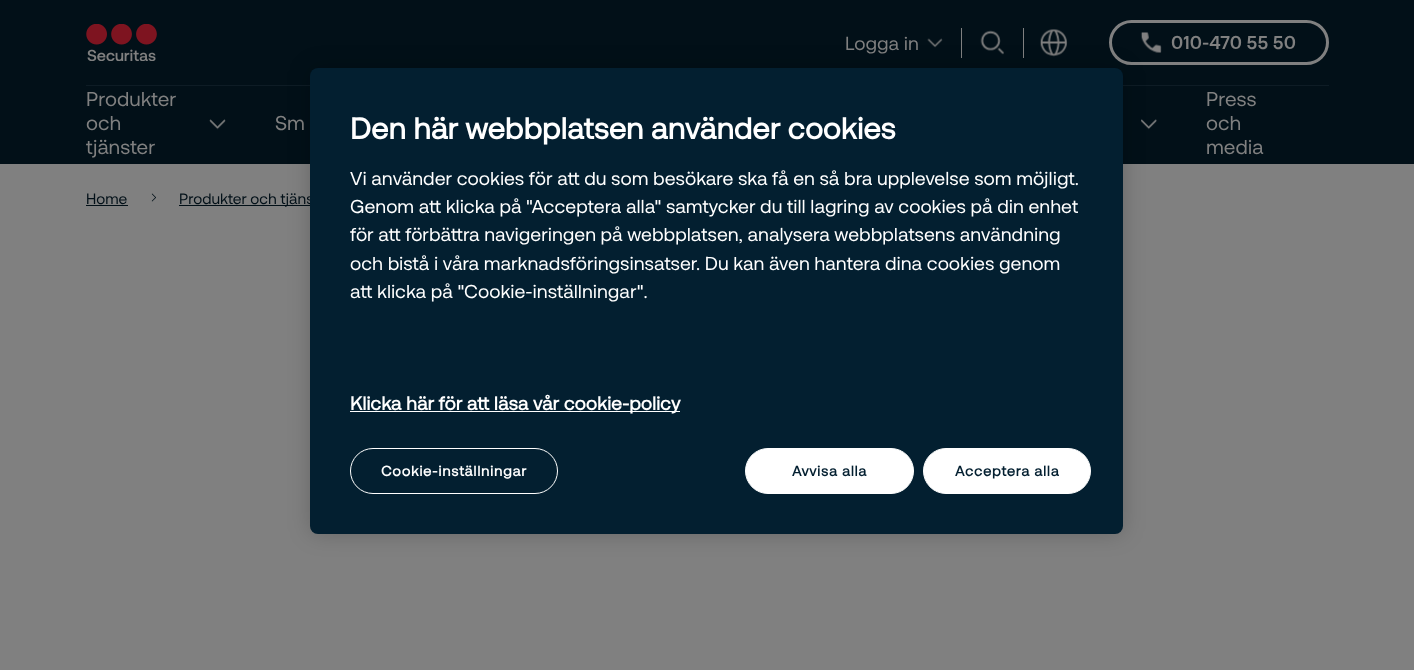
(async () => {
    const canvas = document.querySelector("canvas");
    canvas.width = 1414;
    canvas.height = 670;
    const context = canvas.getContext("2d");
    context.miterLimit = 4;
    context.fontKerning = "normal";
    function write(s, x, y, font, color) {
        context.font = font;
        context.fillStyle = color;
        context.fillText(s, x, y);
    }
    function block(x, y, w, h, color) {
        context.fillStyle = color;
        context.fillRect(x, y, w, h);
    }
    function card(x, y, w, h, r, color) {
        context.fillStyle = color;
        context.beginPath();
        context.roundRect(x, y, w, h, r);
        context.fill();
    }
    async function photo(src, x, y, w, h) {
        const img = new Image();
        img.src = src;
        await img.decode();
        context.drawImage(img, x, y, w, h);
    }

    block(0, 0, 1414, 670, "rgb(128, 128, 128)");
    block(0, 0, 1414, 164, "rgb(2, 16, 24)");
    await photo("media/1.png", 86, 24, 71, 37);
    write("Logga in", 845, 50, "18.75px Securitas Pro", "rgb(128, 128, 128)");
    await photo("media/2.png", 927, 38, 16, 10);
    block(961, 28, 1, 30, "rgb(128, 128, 128)");
    await photo("media/3.png", 980, 30, 24, 25);
    block(1023, 28, 1, 30, "rgb(128, 128, 128)");
    await photo("media/4.png", 1040, 29, 28, 28);
    context.beginPath();
    context.roundRect(1110.5, 21.5, 217, 42, 21);
    context.strokeStyle = "rgb(128, 128, 128)";
    context.lineWidth = 3;
    context.stroke();
    await photo("media/5.png", 1140, 32, 22, 21);
    write("010-470 55 50", 1171, 49, "bold 18.75px Securitas Pro", "rgb(128, 128, 128)");
    block(86, 85, 1243, 1, "rgb(14, 28, 37)");
    write("Produkter", 86, 106, "20px Securitas Pro", "rgb(128, 128, 128)");
    write("och", 86, 130, "20px Securitas Pro", "rgb(128, 128, 128)");
    write("tjänster", 86, 154, "20px Securitas Pro", "rgb(128, 128, 128)");
    await photo("media/6.png", 209, 119, 17, 11);
    write("Sm", 275, 130, "20px Securitas Pro", "rgb(128, 128, 128)");
    await photo("media/7.png", 1141, 119, 16, 11);
    write("Press", 1206, 106, "20px Securitas Pro", "rgb(128, 128, 128)");
    write("och", 1206, 130, "20px Securitas Pro", "rgb(128, 128, 128)");
    write("media", 1206, 154, "20px Securitas Pro", "rgb(128, 128, 128)");
    write("Home", 86, 204, "15px Securitas Pro", "rgb(2, 16, 24)");
    block(86, 205, 42, 1, "rgb(2, 16, 24)");
    await photo("media/8.png", 151, 193, 5, 9);
    block(179, 205, 131, 1, "rgb(2, 16, 24)");
    write("Produkter och tjäns", 179, 204, "15px Securitas Pro", "rgb(2, 16, 24)");
    context.fillStyle = "rgba(0, 0, 0, 0.2)";
    context.filter = "blur(11px)";
    context.beginPath();
    context.roundRect(310, 68, 813, 466, 8);
    context.fill();
    context.filter = "none";
    card(310, 68, 813, 466, 8, "rgb(3, 31, 48)");
    write("Den här webbplatsen använder cookies", 350, 139, "bold 30px 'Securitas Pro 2'", "rgb(255, 255, 255)");
    write("Vi använder cookies för att du som besökare ska få en så bra upplevelse som möjligt.", 350, 185, "18.75px Securitas Pro", "rgb(255, 255, 255)");
    write("Genom att klicka på \"Acceptera alla\" samtycker du till lagring av cookies på din enhet", 350, 213, "18.75px Securitas Pro", "rgb(255, 255, 255)");
    write("för att förbättra navigeringen på webbplatsen, analysera webbplatsens användning", 350, 241, "18.75px Securitas Pro", "rgb(255, 255, 255)");
    write("och bistå i våra marknadsföringsinsatser. Du kan även hantera dina cookies genom", 350, 270, "18.75px Securitas Pro", "rgb(255, 255, 255)");
    write("att klicka på \"Cookie-inställningar\".", 350, 298, "18.75px Securitas Pro", "rgb(255, 255, 255)");
    block(350, 411, 330, 1, "rgb(255, 255, 255)");
    write("Klicka här för att läsa vår cookie-policy", 350, 410, "bold 18.75px 'Securitas Pro 2'", "rgb(255, 255, 255)");
    context.beginPath();
    context.roundRect(350.5, 448.5, 207, 45, 22.5);
    context.strokeStyle = "rgb(255, 255, 255)";
    context.lineWidth = 1;
    context.stroke();
    context.letterSpacing = "0.75px";
    write("Cookie-inställningar", 381, 476, "bold 14.25px 'Securitas Pro 2'", "rgb(255, 255, 255)");
    context.beginPath();
    context.roundRect(745.5, 448.5, 168, 45, 22.5);
    context.fill();
    context.stroke();
    write("Avvisa alla", 792, 476, "bold 14.25px 'Securitas Pro 2'", "rgb(3, 31, 48)");
    context.fillStyle = "rgb(255, 255, 255)";
    context.beginPath();
    context.roundRect(923.5, 448.5, 167, 45, 22.5);
    context.fill();
    context.stroke();
    write("Acceptera alla", 955, 476, "bold 14.25px 'Securitas Pro 2'", "rgb(3, 31, 48)");
})();
